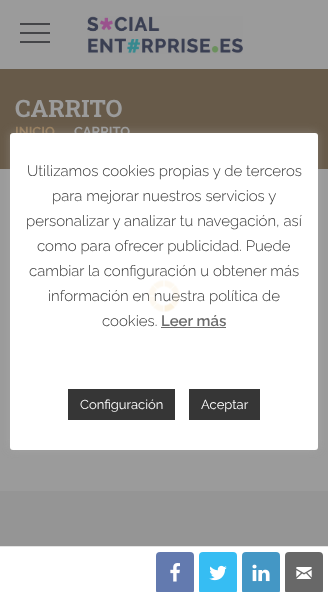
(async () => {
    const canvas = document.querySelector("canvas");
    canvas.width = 328;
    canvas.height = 592;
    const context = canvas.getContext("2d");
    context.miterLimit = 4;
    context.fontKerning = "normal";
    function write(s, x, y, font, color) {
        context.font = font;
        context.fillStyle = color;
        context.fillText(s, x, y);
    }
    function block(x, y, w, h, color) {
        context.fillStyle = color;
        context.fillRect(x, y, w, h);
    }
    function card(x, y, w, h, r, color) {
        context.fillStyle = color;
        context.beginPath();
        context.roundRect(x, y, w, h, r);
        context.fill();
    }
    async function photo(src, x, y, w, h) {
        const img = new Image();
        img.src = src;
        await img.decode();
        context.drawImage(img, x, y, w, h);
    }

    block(0, 0, 328, 592, "rgb(155, 155, 155)");
    block(20, 32, 30, 2, "rgb(68, 69, 72)");
    block(20, 23, 30, 2, "rgb(68, 69, 72)");
    block(20, 41, 30, 2, "rgb(68, 69, 72)");
    await photo("media/1.png", 87, 16, 156, 38);
    block(0, 69, 328, 100, "rgb(103, 90, 73)");
    write("CARRITO", 15, 117, "bold 24px Roboto Slab", "rgb(155, 155, 155)");
    write("INICIO", 15, 136, "bold 13px Raleway", "rgb(152, 126, 93)");
    write("CARRITO", 74, 136, "bold 13px Raleway", "rgb(155, 155, 155)");
    block(0, 491, 328, 55, "rgb(149, 149, 149)");
    context.fillStyle = "rgba(189, 189, 189, 0.3)";
    context.filter = "blur(5px)";
    context.beginPath();
    context.roundRect(10, 132, 308, 317, 3);
    context.fill();
    context.filter = "none";
    card(10, 133, 308, 317, 3, "rgb(255, 255, 255)");
    write("Utilizamos cookies propias y de terceros", 27, 176, "300 15px Raleway", "rgb(54, 54, 54)");
    write("para mejorar nuestros servicios y", 52, 201, "300 15px Raleway", "rgb(54, 54, 54)");
    write("personalizar y analizar tu navegación, así", 26, 226, "300 15px Raleway", "rgb(54, 54, 54)");
    write("como para ofrecer publicidad. Puede", 37, 251, "300 15px Raleway", "rgb(54, 54, 54)");
    write("cambiar la configuración u obtener más", 29, 276, "300 15px Raleway", "rgb(54, 54, 54)");
    write("información en nuestra política de", 48, 301, "300 15px Raleway", "rgb(54, 54, 54)");
    write("cookies.", 102, 326, "300 15px Raleway", "rgb(54, 54, 54)");
    write("Leer más", 161, 326, "600 15px Raleway", "rgb(107, 107, 107)");
    block(161, 327, 65, 1, "rgb(107, 107, 107)");
    block(68, 389, 107, 31, "rgb(54, 54, 54)");
    write("Configuración", 80, 409, "13px Raleway", "rgb(255, 255, 255)");
    block(189, 389, 71, 31, "rgb(54, 54, 54)");
    write("Aceptar", 201, 409, "13px Raleway", "rgb(255, 255, 255)");
    await photo("media/2.png", 148, 280, 32, 32);
    block(0, 547, 328, 45, "rgb(255, 255, 255)");
    block(0, 546, 328, 1, "rgb(228, 228, 228)");
    card(156, 552, 38, 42, 4, "rgb(99, 122, 175)");
    await photo("media/3.png", 170, 563, 10, 19);
    card(199, 552, 38, 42, 4, "rgb(54, 189, 243)");
    await photo("media/4.png", 209, 565, 18, 16);
    card(242, 552, 38, 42, 4, "rgb(68, 151, 197)");
    await photo("media/5.png", 252, 564, 18, 18);
    card(285, 552, 38, 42, 4, "rgb(104, 104, 104)");
    await photo("media/6.png", 296, 567, 16, 12);
})();
